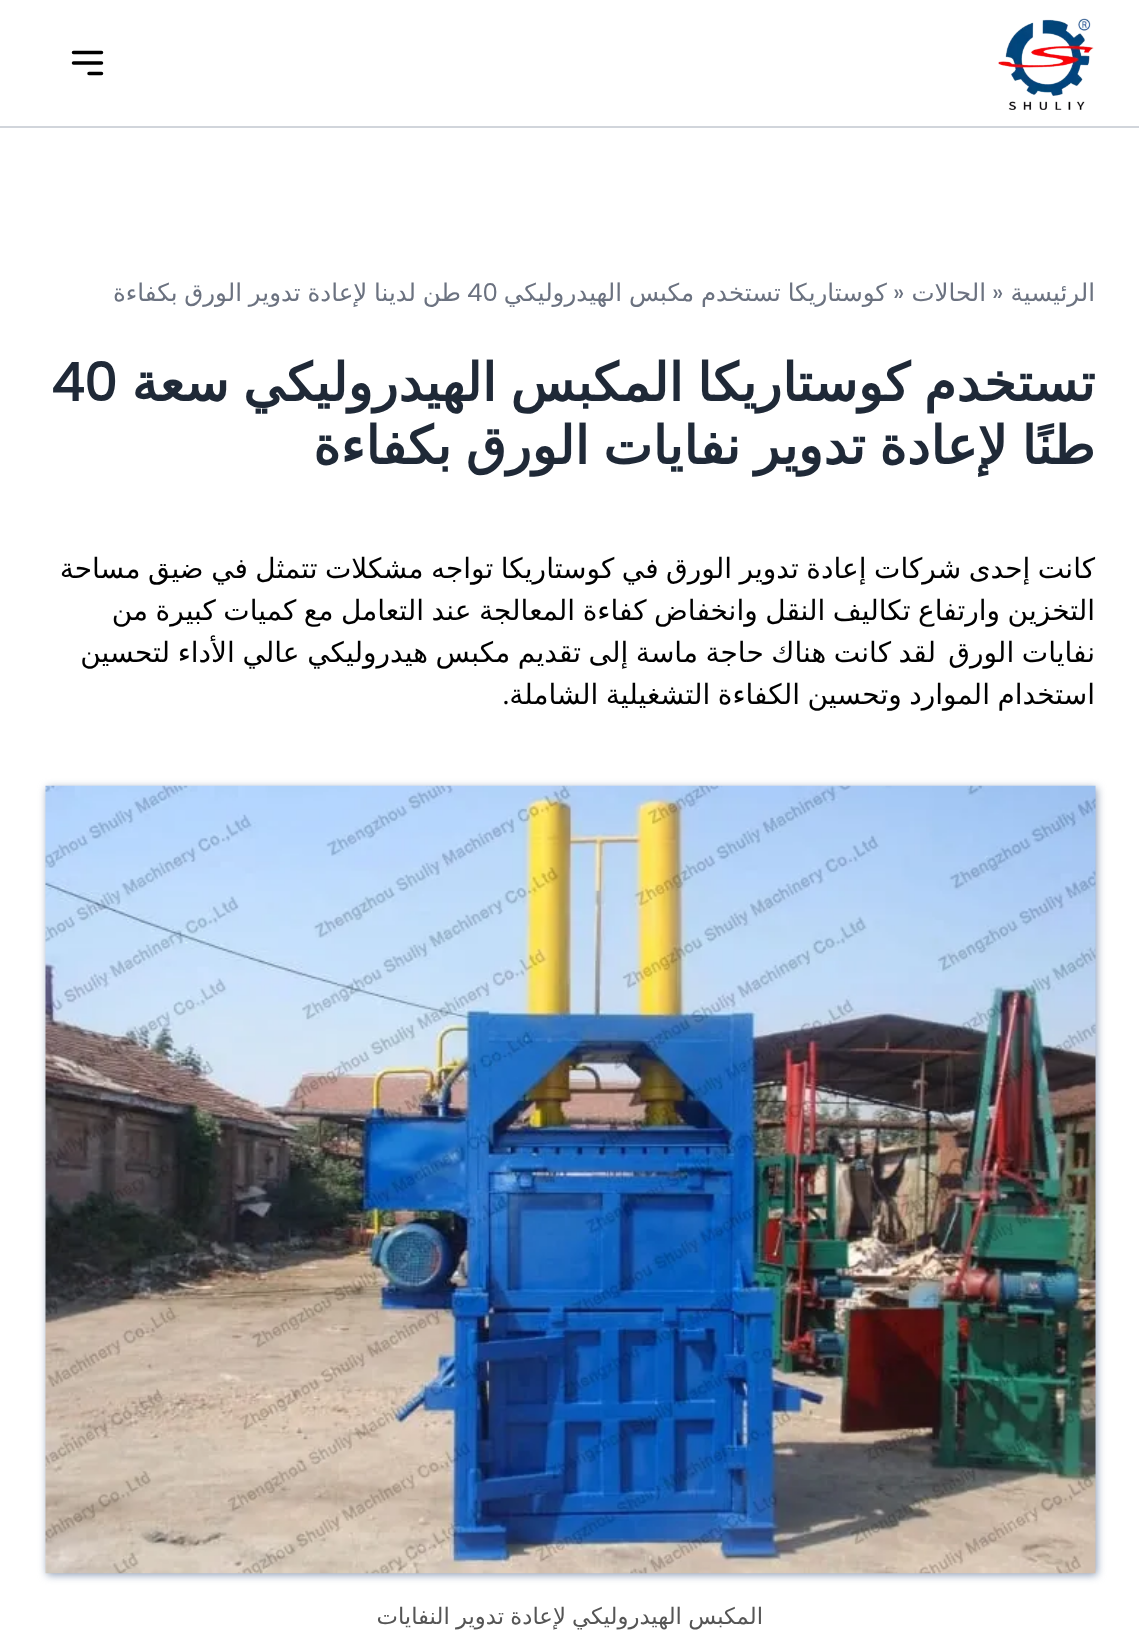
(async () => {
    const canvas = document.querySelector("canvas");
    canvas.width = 1139;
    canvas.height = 1642;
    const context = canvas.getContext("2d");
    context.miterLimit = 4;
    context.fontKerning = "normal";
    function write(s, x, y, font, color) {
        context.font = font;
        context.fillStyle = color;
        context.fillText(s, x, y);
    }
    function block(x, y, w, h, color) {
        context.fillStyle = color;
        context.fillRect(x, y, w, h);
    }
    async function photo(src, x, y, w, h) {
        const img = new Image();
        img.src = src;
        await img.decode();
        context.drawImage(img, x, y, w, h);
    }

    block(0, 0, 1139, 1642, "rgb(255, 255, 255)");
    block(0, 126, 1139, 2, "rgb(209, 213, 219)");
    await photo("media/1.png", 998, 18, 96, 92);
    context.beginPath();
    context.moveTo(73.5, 52.5);
    context.lineTo(101.5, 52.5);
    context.moveTo(73.5, 63);
    context.lineTo(101.5, 63);
    context.moveTo(89, 73.5);
    context.lineTo(101.5, 73.5);
    context.strokeStyle = "rgb(0, 0, 0)";
    context.lineWidth = 3.5;
    context.lineCap = "round";
    context.lineJoin = "round";
    context.stroke();
    context.direction = "rtl";
    write("الرئيسية", 1095, 301, "24.5px DejaVu Sans", "rgb(107, 114, 128)");
    context.direction = "ltr";
    write("»", 992, 301, "24.5px Poppins", "rgb(107, 114, 128)");
    context.direction = "rtl";
    write("الحالات", 986, 301, "24.5px DejaVu Sans", "rgb(107, 114, 128)");
    context.direction = "ltr";
    write("»", 893, 301, "24.5px Poppins", "rgb(107, 114, 128)");
    context.wordSpacing = "-1px";
    context.direction = "rtl";
    write("كوستاريكا تستخدم مكبس الهيدروليكي", 887, 301, "24.5px DejaVu Sans", "rgb(107, 114, 128)");
    context.wordSpacing = "0px";
    context.direction = "ltr";
    write("40", 467, 301, "24.5px Poppins", "rgb(107, 114, 128)");
    context.wordSpacing = "-1px";
    context.direction = "rtl";
    write("طن لدينا لإعادة تدوير الورق بكفاءة", 461, 301, "24.5px DejaVu Sans", "rgb(107, 114, 128)");
    context.wordSpacing = "-2.75px";
    write("تستخدم كوستاريكا المكبس الهيدروليكي سعة", 1095, 401, "bold 52.5px DejaVu Sans", "rgb(31, 41, 55)");
    context.wordSpacing = "0px";
    context.direction = "ltr";
    write("40", 51, 401, "bold 52.5px Poppins", "rgb(31, 41, 55)");
    context.wordSpacing = "-2.75px";
    context.direction = "rtl";
    write("طنًا لإعادة تدوير نفايات الورق بكفاءة", 1095, 464, "bold 52.5px DejaVu Sans", "rgb(31, 41, 55)");
    context.wordSpacing = "-1.4px";
    write("كانت إحدى شركات إعادة تدوير الورق في كوستاريكا تواجه مشكلات تتمثل في ضيق مساحة", 1095, 578, "28px DejaVu Sans", "rgb(0, 0, 0)");
    write("التخزين وارتفاع تكاليف النقل وانخفاض كفاءة المعالجة عند التعامل مع كميات كبيرة من", 1095, 620, "28px DejaVu Sans", "rgb(0, 0, 0)");
    context.wordSpacing = "-1.25px";
    write("نفايات الورق", 1095, 662, "28px DejaVu Sans", "rgb(0, 0, 0)");
    write("لقد كانت هناك حاجة ماسة إلى تقديم مكبس هيدروليكي عالي الأداء لتحسين", 936, 662, "28px DejaVu Sans", "rgb(0, 0, 0)");
    context.wordSpacing = "-1.4px";
    write("استخدام الموارد وتحسين الكفاءة التشغيلية الشاملة", 1095, 704, "28px DejaVu Sans", "rgb(0, 0, 0)");
    context.wordSpacing = "0px";
    write(".", 509, 704, "28px Poppins", "rgb(0, 0, 0)");
    context.fillStyle = "rgb(141, 157, 184)";
    context.filter = "blur(4.5px)";
    context.beginPath();
    context.rect(47, 788, 1050, 787);
    context.fill();
    context.filter = "none";
    await photo("media/2.png", 45, 785, 1051, 789);
    context.wordSpacing = "-1px";
    write("المكبس الهيدروليكي لإعادة تدوير النفايات", 763, 1624, "22.75px DejaVu Sans", "rgb(85, 85, 85)");
})();
